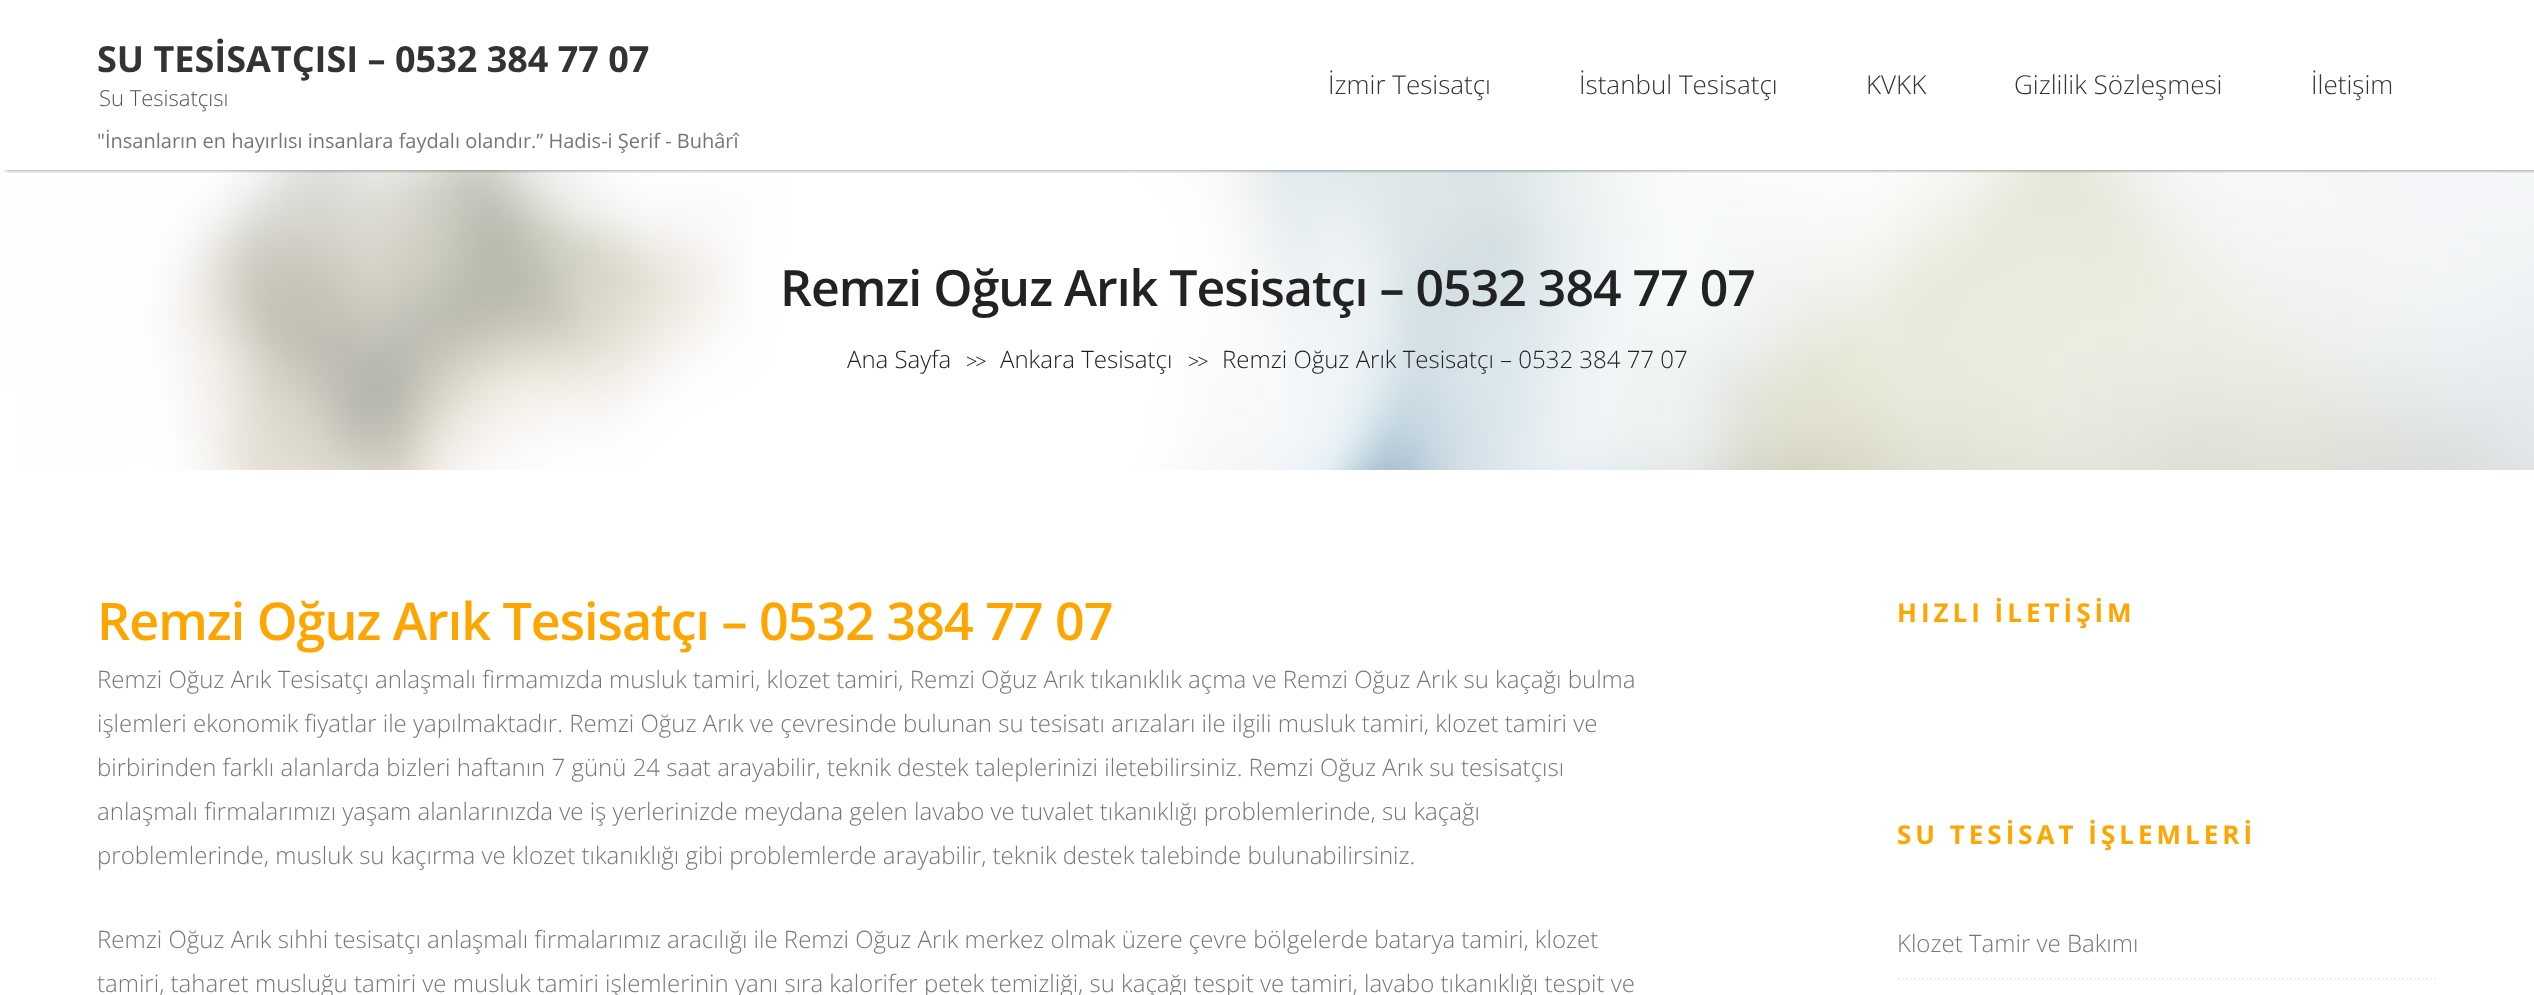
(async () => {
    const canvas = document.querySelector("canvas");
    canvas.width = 2534;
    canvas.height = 995;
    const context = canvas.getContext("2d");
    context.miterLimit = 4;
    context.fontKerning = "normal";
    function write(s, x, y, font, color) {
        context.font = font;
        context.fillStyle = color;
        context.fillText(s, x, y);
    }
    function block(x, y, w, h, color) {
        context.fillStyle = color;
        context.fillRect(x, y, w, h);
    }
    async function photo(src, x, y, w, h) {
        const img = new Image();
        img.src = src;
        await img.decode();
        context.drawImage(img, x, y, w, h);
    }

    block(0, 0, 2534, 995, "rgb(255, 255, 255)");
    await photo("media/1.png", 0, 170, 2534, 300);
    context.save();
    context.beginPath();
    context.rect(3, 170, 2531, 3);
    context.clip();
    context.fillStyle = "rgba(0, 0, 0, 0.5)";
    context.filter = "blur(2px)";
    context.beginPath();
    context.rect(6, 0, 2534, 170);
    context.fill();
    context.filter = "none";
    context.restore();
    write("SU TESİSATÇISI – 0532 384 77 07", 97, 72, "bold 36px Open Sans", "rgb(51, 51, 51)");
    write("Su Tesisatçısı", 99, 106, "300 22px Open Sans", "rgb(85, 85, 85)");
    write("\"İnsanların en hayırlısı insanlara faydalı olandır.” Hadis-i Şerif - Buhârî", 97, 148, "20px Open Sans", "rgb(119, 119, 119)");
    write("İzmir Tesisatçı", 1328, 94, "300 26px Open Sans", "rgb(51, 51, 51)");
    write("İstanbul Tesisatçı", 1579, 94, "300 26px Open Sans", "rgb(51, 51, 51)");
    write("KVKK", 1866, 94, "300 26px Open Sans", "rgb(51, 51, 51)");
    write("Gizlilik Sözleşmesi", 2014, 94, "300 26px Open Sans", "rgb(51, 51, 51)");
    write("İletişim", 2311, 94, "300 26px Open Sans", "rgb(51, 51, 51)");
    context.letterSpacing = "-1px";
    write("Remzi Oğuz Arık Tesisatçı – 0532 384 77 07", 780, 306, "600 50px Open Sans", "rgb(34, 34, 34)");
    context.letterSpacing = "0px";
    write("Ana Sayfa", 847, 368, "300 24px Open Sans", "rgb(34, 34, 34)");
    context.letterSpacing = "-2px";
    write(">>", 966, 368, "20px Liberation Serif", "rgb(34, 34, 34)");
    context.letterSpacing = "0px";
    write("Ankara Tesisatçı", 1000, 368, "300 24px Open Sans", "rgb(34, 34, 34)");
    context.letterSpacing = "-2px";
    write(">>", 1188, 368, "20px Liberation Serif", "rgb(34, 34, 34)");
    context.letterSpacing = "0px";
    write("Remzi Oğuz Arık Tesisatçı – 0532 384 77 07", 1222, 368, "300 24px Open Sans", "rgb(34, 34, 34)");
    context.letterSpacing = "-1px";
    write("Remzi Oğuz Arık Tesisatçı – 0532 384 77 07", 97, 640, "600 52px Open Sans", "rgb(255, 165, 0)");
    context.letterSpacing = "0px";
    write("Remzi Oğuz Arık Tesisatçı anlaşmalı firmamızda musluk tamiri, klozet tamiri, Remzi Oğuz Arık tıkanıklık açma ve Remzi Oğuz Arık su kaçağı bulma", 97, 688, "300 24px Open Sans", "rgb(119, 119, 119)");
    write("işlemleri ekonomik fiyatlar ile yapılmaktadır. Remzi Oğuz Arık ve çevresinde bulunan su tesisatı arızaları ile ilgili musluk tamiri, klozet tamiri ve", 97, 732, "300 24px Open Sans", "rgb(119, 119, 119)");
    write("birbirinden farklı alanlarda bizleri haftanın 7 günü 24 saat arayabilir, teknik destek taleplerinizi iletebilirsiniz. Remzi Oğuz Arık su tesisatçısı", 97, 776, "300 24px Open Sans", "rgb(119, 119, 119)");
    write("anlaşmalı firmalarımızı yaşam alanlarınızda ve iş yerlerinizde meydana gelen lavabo ve tuvalet tıkanıklığı problemlerinde, su kaçağı", 97, 820, "300 24px Open Sans", "rgb(119, 119, 119)");
    write("problemlerinde, musluk su kaçırma ve klozet tıkanıklığı gibi problemlerde arayabilir, teknik destek talebinde bulunabilirsiniz.", 97, 864, "300 24px Open Sans", "rgb(119, 119, 119)");
    write("Remzi Oğuz Arık sıhhi tesisatçı anlaşmalı firmalarımız aracılığı ile Remzi Oğuz Arık merkez olmak üzere çevre bölgelerde batarya tamiri, klozet", 97, 948, "300 24px Open Sans", "rgb(119, 119, 119)");
    write("tamiri, taharet musluğu tamiri ve musluk tamiri işlemlerinin yanı sıra kalorifer petek temizliği, su kaçağı tespit ve tamiri, lavabo tıkanıklığı tespit ve", 97, 992, "300 24px Open Sans", "rgb(119, 119, 119)");
    context.letterSpacing = "4px";
    write("HIZLI İLETİŞİM", 1897, 622, "bold 26px Open Sans", "rgb(255, 165, 0)");
    write("SU TESİSAT İŞLEMLERİ", 1897, 844, "bold 26px Open Sans", "rgb(255, 165, 0)");
    context.beginPath();
    context.moveTo(1898, 979);
    context.lineTo(2438, 979);
    context.strokeStyle = "rgb(238, 238, 238)";
    context.lineWidth = 2;
    context.setLineDash([2, 2]);
    context.stroke();
    context.letterSpacing = "0px";
    write("Klozet Tamir ve Bakımı", 1897, 952, "300 24px Open Sans", "rgb(119, 119, 119)");
})();
